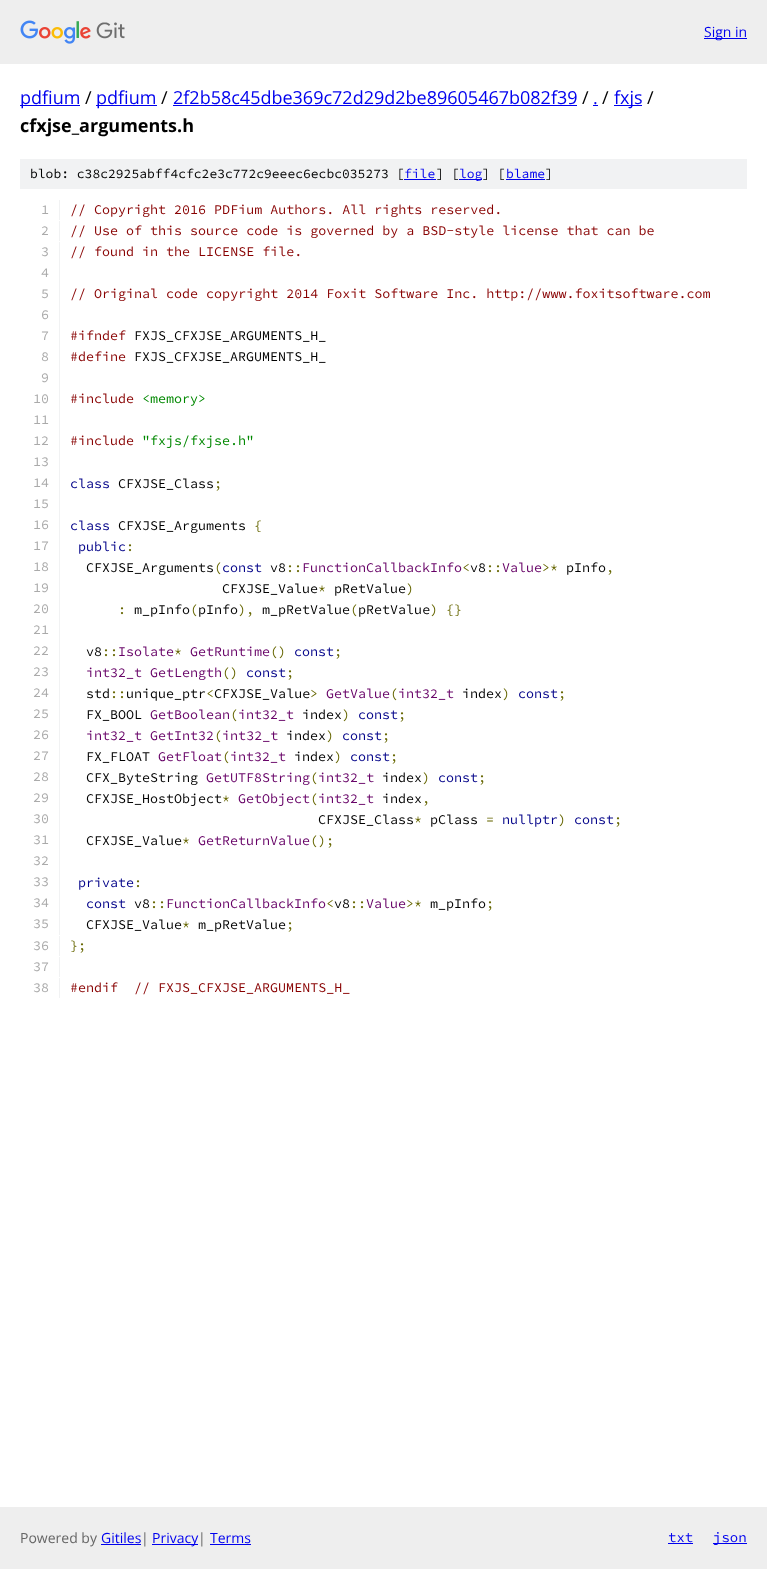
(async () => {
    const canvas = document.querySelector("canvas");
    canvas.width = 767;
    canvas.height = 1569;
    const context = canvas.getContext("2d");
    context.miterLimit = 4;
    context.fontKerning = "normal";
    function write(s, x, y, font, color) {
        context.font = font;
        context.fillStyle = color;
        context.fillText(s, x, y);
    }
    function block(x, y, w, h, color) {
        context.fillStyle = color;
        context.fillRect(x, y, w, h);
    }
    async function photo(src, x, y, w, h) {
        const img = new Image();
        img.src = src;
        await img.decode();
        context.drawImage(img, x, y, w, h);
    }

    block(0, 0, 767, 1569, "rgb(255, 255, 255)");
    block(0, 0, 767, 64, "rgb(238, 238, 238)");
    await photo("media/1.png", 20, 20, 105, 24);
    block(704, 38, 43, 1, "rgb(0, 0, 238)");
    write("Sign in", 704, 37, "14px Open Sans", "rgb(0, 0, 238)");
    block(20, 105, 60, 1, "rgb(0, 0, 238)");
    write("pdfium", 20, 104, "18px Open Sans", "rgb(0, 0, 238)");
    write("/", 85, 104, "18px Open Sans", "rgb(0, 0, 0)");
    block(96, 105, 61, 1, "rgb(0, 0, 238)");
    write("pdfium", 96, 104, "18px Open Sans", "rgb(0, 0, 238)");
    write("/", 161, 104, "18px Open Sans", "rgb(0, 0, 0)");
    write("2f2b58c45dbe369c72d29d2be89605467b082f39", 173, 104, "18px Open Sans", "rgb(0, 0, 238)");
    block(173, 105, 404, 1, "rgb(0, 0, 238)");
    write("/", 582, 104, "18px Open Sans", "rgb(0, 0, 0)");
    write(".", 593, 104, "18px Open Sans", "rgb(0, 0, 238)");
    block(593, 105, 5, 1, "rgb(0, 0, 238)");
    write("/", 602, 104, "18px Open Sans", "rgb(0, 0, 0)");
    block(614, 105, 28, 1, "rgb(0, 0, 238)");
    write("fxjs", 614, 104, "18px Open Sans", "rgb(0, 0, 238)");
    write("/", 647, 104, "18px Open Sans", "rgb(0, 0, 0)");
    write("cfxjse_arguments.h", 20, 132, "bold 18px Open Sans", "rgb(0, 0, 0)");
    block(20, 159, 727, 30, "rgb(241, 242, 243)");
    write("blob: c38c2925abff4cfc2e3c772c9eeec6ecbc035273 [", 30, 178, "200 13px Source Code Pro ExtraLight", "rgb(0, 0, 0)");
    write("file", 404, 178, "200 13px Source Code Pro ExtraLight", "rgb(0, 0, 238)");
    block(404, 179, 32, 1, "rgb(0, 0, 238)");
    write("] [", 436, 178, "200 13px Source Code Pro ExtraLight", "rgb(0, 0, 0)");
    block(459, 179, 23, 1, "rgb(0, 0, 238)");
    write("log", 459, 178, "200 13px Source Code Pro ExtraLight", "rgb(0, 0, 238)");
    write("] [", 482, 178, "200 13px Source Code Pro ExtraLight", "rgb(0, 0, 0)");
    write("blame", 506, 178, "200 13px Source Code Pro ExtraLight", "rgb(0, 0, 238)");
    block(506, 179, 39, 1, "rgb(0, 0, 238)");
    write("]", 545, 178, "200 13px Source Code Pro ExtraLight", "rgb(0, 0, 0)");
    block(59, 200, 1, 20, "rgb(241, 242, 243)");
    write("1", 41, 214, "200 13.35px Source Code Pro ExtraLight", "rgb(170, 170, 170)");
    write("// Copyright 2016 PDFium Authors. All rights reserved.", 70, 214, "200 13.35px Source Code Pro ExtraLight", "rgb(136, 0, 0)");
    block(59, 221, 1, 20, "rgb(241, 242, 243)");
    write("2", 41, 235, "200 13.35px Source Code Pro ExtraLight", "rgb(170, 170, 170)");
    write("// Use of this source code is governed by a BSD-style license that can be", 70, 235, "200 13.35px Source Code Pro ExtraLight", "rgb(136, 0, 0)");
    block(59, 242, 1, 693, "rgb(241, 242, 243)");
    write("3", 41, 256, "200 13.35px Source Code Pro ExtraLight", "rgb(170, 170, 170)");
    write("// found in the LICENSE file.", 70, 256, "200 13.35px Source Code Pro ExtraLight", "rgb(136, 0, 0)");
    write("4", 41, 277, "200 13.35px Source Code Pro ExtraLight", "rgb(170, 170, 170)");
    write("5", 41, 298, "200 13.35px Source Code Pro ExtraLight", "rgb(170, 170, 170)");
    write("// Original code copyright 2014 Foxit Software Inc. http://www.foxitsoftware.com", 70, 298, "200 13.35px Source Code Pro ExtraLight", "rgb(136, 0, 0)");
    write("6", 41, 319, "200 13.35px Source Code Pro ExtraLight", "rgb(170, 170, 170)");
    write("7", 41, 340, "200 13.35px Source Code Pro ExtraLight", "rgb(170, 170, 170)");
    write("#ifndef", 70, 340, "200 13.35px Source Code Pro ExtraLight", "rgb(136, 0, 0)");
    write("FXJS_CFXJSE_ARGUMENTS_H_", 134, 340, "200 13.35px Source Code Pro ExtraLight", "rgb(0, 0, 0)");
    write("8", 41, 361, "200 13.35px Source Code Pro ExtraLight", "rgb(170, 170, 170)");
    write("#define", 70, 361, "200 13.35px Source Code Pro ExtraLight", "rgb(136, 0, 0)");
    write("FXJS_CFXJSE_ARGUMENTS_H_", 134, 361, "200 13.35px Source Code Pro ExtraLight", "rgb(0, 0, 0)");
    write("9", 41, 382, "200 13.35px Source Code Pro ExtraLight", "rgb(170, 170, 170)");
    write("10", 33, 403, "200 13.35px Source Code Pro ExtraLight", "rgb(170, 170, 170)");
    write("#include", 70, 403, "200 13.35px Source Code Pro ExtraLight", "rgb(136, 0, 0)");
    write("<memory>", 142, 403, "200 13.35px Source Code Pro ExtraLight", "rgb(0, 136, 0)");
    write("11", 33, 424, "200 13.35px Source Code Pro ExtraLight", "rgb(170, 170, 170)");
    write("12", 33, 445, "200 13.35px Source Code Pro ExtraLight", "rgb(170, 170, 170)");
    write("#include", 70, 445, "200 13.35px Source Code Pro ExtraLight", "rgb(136, 0, 0)");
    write("\"fxjs/fxjse.h\"", 142, 445, "200 13.35px Source Code Pro ExtraLight", "rgb(0, 136, 0)");
    write("13", 33, 466, "200 13.35px Source Code Pro ExtraLight", "rgb(170, 170, 170)");
    write("14", 33, 487, "200 13.35px Source Code Pro ExtraLight", "rgb(170, 170, 170)");
    write("class", 70, 488, "200 13.35px Source Code Pro ExtraLight", "rgb(0, 0, 136)");
    write("CFXJSE_Class", 118, 488, "200 13.35px Source Code Pro ExtraLight", "rgb(0, 0, 0)");
    write(";", 214, 488, "200 13.35px Source Code Pro ExtraLight", "rgb(102, 102, 0)");
    write("15", 33, 508, "200 13.35px Source Code Pro ExtraLight", "rgb(170, 170, 170)");
    write("16", 33, 529, "200 13.35px Source Code Pro ExtraLight", "rgb(170, 170, 170)");
    write("class", 70, 530, "200 13.35px Source Code Pro ExtraLight", "rgb(0, 0, 136)");
    write("CFXJSE_Arguments", 118, 530, "200 13.35px Source Code Pro ExtraLight", "rgb(0, 0, 0)");
    write("{", 254, 530, "200 13.35px Source Code Pro ExtraLight", "rgb(102, 102, 0)");
    write("17", 33, 550, "200 13.35px Source Code Pro ExtraLight", "rgb(170, 170, 170)");
    write("public", 78, 551, "200 13.35px Source Code Pro ExtraLight", "rgb(0, 0, 136)");
    write(":", 126, 551, "200 13.35px Source Code Pro ExtraLight", "rgb(102, 102, 0)");
    write("18", 33, 571, "200 13.35px Source Code Pro ExtraLight", "rgb(170, 170, 170)");
    write("CFXJSE_Arguments", 86, 572, "200 13.35px Source Code Pro ExtraLight", "rgb(0, 0, 0)");
    write("(", 214, 572, "200 13.35px Source Code Pro ExtraLight", "rgb(102, 102, 0)");
    write("const", 222, 572, "200 13.35px Source Code Pro ExtraLight", "rgb(0, 0, 136)");
    write("v8", 270, 572, "200 13.35px Source Code Pro ExtraLight", "rgb(0, 0, 0)");
    write("::", 286, 572, "200 13.35px Source Code Pro ExtraLight", "rgb(102, 102, 0)");
    write("FunctionCallbackInfo", 302, 572, "200 13.35px Source Code Pro ExtraLight", "rgb(102, 0, 102)");
    write("<", 462, 572, "200 13.35px Source Code Pro ExtraLight", "rgb(102, 102, 0)");
    write("v8", 470, 572, "200 13.35px Source Code Pro ExtraLight", "rgb(0, 0, 0)");
    write("::", 486, 572, "200 13.35px Source Code Pro ExtraLight", "rgb(102, 102, 0)");
    write("Value", 502, 572, "200 13.35px Source Code Pro ExtraLight", "rgb(102, 0, 102)");
    write(">*", 542, 572, "200 13.35px Source Code Pro ExtraLight", "rgb(102, 102, 0)");
    write("pInfo", 566, 572, "200 13.35px Source Code Pro ExtraLight", "rgb(0, 0, 0)");
    write(",", 606, 572, "200 13.35px Source Code Pro ExtraLight", "rgb(102, 102, 0)");
    write("19", 33, 592, "200 13.35px Source Code Pro ExtraLight", "rgb(170, 170, 170)");
    write("CFXJSE_Value", 222, 593, "200 13.35px Source Code Pro ExtraLight", "rgb(0, 0, 0)");
    write("*", 318, 593, "200 13.35px Source Code Pro ExtraLight", "rgb(102, 102, 0)");
    write("pRetValue", 334, 593, "200 13.35px Source Code Pro ExtraLight", "rgb(0, 0, 0)");
    write(")", 406, 593, "200 13.35px Source Code Pro ExtraLight", "rgb(102, 102, 0)");
    write("20", 33, 613, "200 13.35px Source Code Pro ExtraLight", "rgb(170, 170, 170)");
    write("m_pInfo pInfo", 134, 614, "200 13.35px Source Code Pro ExtraLight", "rgb(0, 0, 0)");
    write("(", 190, 614, "200 13.35px Source Code Pro ExtraLight", "rgb(102, 102, 0)");
    write("),", 238, 614, "200 13.35px Source Code Pro ExtraLight", "rgb(102, 102, 0)");
    write("m_pRetValue pRetValue", 262, 614, "200 13.35px Source Code Pro ExtraLight", "rgb(0, 0, 0)");
    write(":", 118, 614, "200 13.35px Source Code Pro ExtraLight", "rgb(102, 102, 0)");
    write("(", 350, 614, "200 13.35px Source Code Pro ExtraLight", "rgb(102, 102, 0)");
    write(") {}", 430, 614, "200 13.35px Source Code Pro ExtraLight", "rgb(102, 102, 0)");
    write("21", 33, 634, "200 13.35px Source Code Pro ExtraLight", "rgb(170, 170, 170)");
    write("22", 33, 655, "200 13.35px Source Code Pro ExtraLight", "rgb(170, 170, 170)");
    write("v8", 86, 656, "200 13.35px Source Code Pro ExtraLight", "rgb(0, 0, 0)");
    write("::", 102, 656, "200 13.35px Source Code Pro ExtraLight", "rgb(102, 102, 0)");
    write("Isolate", 118, 656, "200 13.35px Source Code Pro ExtraLight", "rgb(102, 0, 102)");
    write("*", 174, 656, "200 13.35px Source Code Pro ExtraLight", "rgb(102, 102, 0)");
    write("GetRuntime", 190, 656, "200 13.35px Source Code Pro ExtraLight", "rgb(102, 0, 102)");
    write("()", 270, 656, "200 13.35px Source Code Pro ExtraLight", "rgb(102, 102, 0)");
    write("const", 294, 656, "200 13.35px Source Code Pro ExtraLight", "rgb(0, 0, 136)");
    write(";", 334, 656, "200 13.35px Source Code Pro ExtraLight", "rgb(102, 102, 0)");
    write("23", 33, 676, "200 13.35px Source Code Pro ExtraLight", "rgb(170, 170, 170)");
    write("int32_t GetLength", 86, 677, "200 13.35px Source Code Pro ExtraLight", "rgb(102, 0, 102)");
    write("()", 222, 677, "200 13.35px Source Code Pro ExtraLight", "rgb(102, 102, 0)");
    write("const", 246, 677, "200 13.35px Source Code Pro ExtraLight", "rgb(0, 0, 136)");
    write(";", 286, 677, "200 13.35px Source Code Pro ExtraLight", "rgb(102, 102, 0)");
    write("24", 33, 697, "200 13.35px Source Code Pro ExtraLight", "rgb(170, 170, 170)");
    write("std", 86, 698, "200 13.35px Source Code Pro ExtraLight", "rgb(0, 0, 0)");
    write("unique_ptr CFXJSE_Value", 126, 698, "200 13.35px Source Code Pro ExtraLight", "rgb(0, 0, 0)");
    write("GetValue int32_t", 326, 698, "200 13.35px Source Code Pro ExtraLight", "rgb(102, 0, 102)");
    write("::", 110, 698, "200 13.35px Source Code Pro ExtraLight", "rgb(102, 102, 0)");
    write("<", 206, 698, "200 13.35px Source Code Pro ExtraLight", "rgb(102, 102, 0)");
    write(">", 310, 698, "200 13.35px Source Code Pro ExtraLight", "rgb(102, 102, 0)");
    write("(", 390, 698, "200 13.35px Source Code Pro ExtraLight", "rgb(102, 102, 0)");
    write("index", 462, 698, "200 13.35px Source Code Pro ExtraLight", "rgb(0, 0, 0)");
    write(")", 502, 698, "200 13.35px Source Code Pro ExtraLight", "rgb(102, 102, 0)");
    write("const", 518, 698, "200 13.35px Source Code Pro ExtraLight", "rgb(0, 0, 136)");
    write(";", 558, 698, "200 13.35px Source Code Pro ExtraLight", "rgb(102, 102, 0)");
    write("25", 33, 718, "200 13.35px Source Code Pro ExtraLight", "rgb(170, 170, 170)");
    write("GetBoolean int32_t", 150, 719, "200 13.35px Source Code Pro ExtraLight", "rgb(102, 0, 102)");
    write("FX_BOOL", 86, 719, "200 13.35px Source Code Pro ExtraLight", "rgb(0, 0, 0)");
    write("(", 230, 719, "200 13.35px Source Code Pro ExtraLight", "rgb(102, 102, 0)");
    write("index", 302, 719, "200 13.35px Source Code Pro ExtraLight", "rgb(0, 0, 0)");
    write(")", 342, 719, "200 13.35px Source Code Pro ExtraLight", "rgb(102, 102, 0)");
    write("const", 358, 719, "200 13.35px Source Code Pro ExtraLight", "rgb(0, 0, 136)");
    write(";", 398, 719, "200 13.35px Source Code Pro ExtraLight", "rgb(102, 102, 0)");
    write("26", 33, 739, "200 13.35px Source Code Pro ExtraLight", "rgb(170, 170, 170)");
    write("int32_t GetInt32 int32_t", 86, 740, "200 13.35px Source Code Pro ExtraLight", "rgb(102, 0, 102)");
    write("(", 214, 740, "200 13.35px Source Code Pro ExtraLight", "rgb(102, 102, 0)");
    write("index", 286, 740, "200 13.35px Source Code Pro ExtraLight", "rgb(0, 0, 0)");
    write(")", 326, 740, "200 13.35px Source Code Pro ExtraLight", "rgb(102, 102, 0)");
    write("const", 342, 740, "200 13.35px Source Code Pro ExtraLight", "rgb(0, 0, 136)");
    write(";", 382, 740, "200 13.35px Source Code Pro ExtraLight", "rgb(102, 102, 0)");
    write("27", 33, 760, "200 13.35px Source Code Pro ExtraLight", "rgb(170, 170, 170)");
    write("GetFloat int32_t", 158, 761, "200 13.35px Source Code Pro ExtraLight", "rgb(102, 0, 102)");
    write("FX_FLOAT", 86, 761, "200 13.35px Source Code Pro ExtraLight", "rgb(0, 0, 0)");
    write("(", 222, 761, "200 13.35px Source Code Pro ExtraLight", "rgb(102, 102, 0)");
    write("index", 294, 761, "200 13.35px Source Code Pro ExtraLight", "rgb(0, 0, 0)");
    write(")", 334, 761, "200 13.35px Source Code Pro ExtraLight", "rgb(102, 102, 0)");
    write("const", 350, 761, "200 13.35px Source Code Pro ExtraLight", "rgb(0, 0, 136)");
    write(";", 390, 761, "200 13.35px Source Code Pro ExtraLight", "rgb(102, 102, 0)");
    write("28", 33, 781, "200 13.35px Source Code Pro ExtraLight", "rgb(170, 170, 170)");
    write("CFX_ByteString", 86, 782, "200 13.35px Source Code Pro ExtraLight", "rgb(0, 0, 0)");
    write("GetUTF8String int32_t", 206, 782, "200 13.35px Source Code Pro ExtraLight", "rgb(102, 0, 102)");
    write("(", 310, 782, "200 13.35px Source Code Pro ExtraLight", "rgb(102, 102, 0)");
    write("index", 382, 782, "200 13.35px Source Code Pro ExtraLight", "rgb(0, 0, 0)");
    write(")", 422, 782, "200 13.35px Source Code Pro ExtraLight", "rgb(102, 102, 0)");
    write("const", 438, 782, "200 13.35px Source Code Pro ExtraLight", "rgb(0, 0, 136)");
    write(";", 478, 782, "200 13.35px Source Code Pro ExtraLight", "rgb(102, 102, 0)");
    write("29", 33, 802, "200 13.35px Source Code Pro ExtraLight", "rgb(170, 170, 170)");
    write("CFXJSE_HostObject", 86, 803, "200 13.35px Source Code Pro ExtraLight", "rgb(0, 0, 0)");
    write("GetObject int32_t", 238, 803, "200 13.35px Source Code Pro ExtraLight", "rgb(102, 0, 102)");
    write("*", 222, 803, "200 13.35px Source Code Pro ExtraLight", "rgb(102, 102, 0)");
    write("(", 310, 803, "200 13.35px Source Code Pro ExtraLight", "rgb(102, 102, 0)");
    write("index", 382, 803, "200 13.35px Source Code Pro ExtraLight", "rgb(0, 0, 0)");
    write(",", 422, 803, "200 13.35px Source Code Pro ExtraLight", "rgb(102, 102, 0)");
    write("30", 33, 823, "200 13.35px Source Code Pro ExtraLight", "rgb(170, 170, 170)");
    write("CFXJSE_Class", 318, 824, "200 13.35px Source Code Pro ExtraLight", "rgb(0, 0, 0)");
    write("*", 414, 824, "200 13.35px Source Code Pro ExtraLight", "rgb(102, 102, 0)");
    write("pClass", 430, 824, "200 13.35px Source Code Pro ExtraLight", "rgb(0, 0, 0)");
    write("=", 486, 824, "200 13.35px Source Code Pro ExtraLight", "rgb(102, 102, 0)");
    write("nullptr", 502, 824, "200 13.35px Source Code Pro ExtraLight", "rgb(0, 0, 136)");
    write(")", 558, 824, "200 13.35px Source Code Pro ExtraLight", "rgb(102, 102, 0)");
    write("const", 574, 824, "200 13.35px Source Code Pro ExtraLight", "rgb(0, 0, 136)");
    write(";", 614, 824, "200 13.35px Source Code Pro ExtraLight", "rgb(102, 102, 0)");
    write("31", 33, 844, "200 13.35px Source Code Pro ExtraLight", "rgb(170, 170, 170)");
    write("CFXJSE_Value", 86, 845, "200 13.35px Source Code Pro ExtraLight", "rgb(0, 0, 0)");
    write("*", 182, 845, "200 13.35px Source Code Pro ExtraLight", "rgb(102, 102, 0)");
    write("GetReturnValue", 198, 845, "200 13.35px Source Code Pro ExtraLight", "rgb(102, 0, 102)");
    write("();", 310, 845, "200 13.35px Source Code Pro ExtraLight", "rgb(102, 102, 0)");
    write("32", 33, 865, "200 13.35px Source Code Pro ExtraLight", "rgb(170, 170, 170)");
    write("33", 33, 886, "200 13.35px Source Code Pro ExtraLight", "rgb(170, 170, 170)");
    write("private", 78, 887, "200 13.35px Source Code Pro ExtraLight", "rgb(0, 0, 136)");
    write(":", 134, 887, "200 13.35px Source Code Pro ExtraLight", "rgb(102, 102, 0)");
    write("34", 33, 907, "200 13.35px Source Code Pro ExtraLight", "rgb(170, 170, 170)");
    write("const", 86, 908, "200 13.35px Source Code Pro ExtraLight", "rgb(0, 0, 136)");
    write("v8", 134, 908, "200 13.35px Source Code Pro ExtraLight", "rgb(0, 0, 0)");
    write("::", 150, 908, "200 13.35px Source Code Pro ExtraLight", "rgb(102, 102, 0)");
    write("FunctionCallbackInfo", 166, 908, "200 13.35px Source Code Pro ExtraLight", "rgb(102, 0, 102)");
    write("<", 326, 908, "200 13.35px Source Code Pro ExtraLight", "rgb(102, 102, 0)");
    write("v8", 334, 908, "200 13.35px Source Code Pro ExtraLight", "rgb(0, 0, 0)");
    write("::", 350, 908, "200 13.35px Source Code Pro ExtraLight", "rgb(102, 102, 0)");
    write("Value", 366, 908, "200 13.35px Source Code Pro ExtraLight", "rgb(102, 0, 102)");
    write(">*", 406, 908, "200 13.35px Source Code Pro ExtraLight", "rgb(102, 102, 0)");
    write("m_pInfo", 430, 908, "200 13.35px Source Code Pro ExtraLight", "rgb(0, 0, 0)");
    write(";", 486, 908, "200 13.35px Source Code Pro ExtraLight", "rgb(102, 102, 0)");
    write("35", 33, 928, "200 13.35px Source Code Pro ExtraLight", "rgb(170, 170, 170)");
    write("CFXJSE_Value", 86, 929, "200 13.35px Source Code Pro ExtraLight", "rgb(0, 0, 0)");
    write("*", 182, 929, "200 13.35px Source Code Pro ExtraLight", "rgb(102, 102, 0)");
    write("m_pRetValue", 198, 929, "200 13.35px Source Code Pro ExtraLight", "rgb(0, 0, 0)");
    write(";", 286, 929, "200 13.35px Source Code Pro ExtraLight", "rgb(102, 102, 0)");
    block(59, 936, 1, 20, "rgb(241, 242, 243)");
    write("36", 33, 950, "200 13.35px Source Code Pro ExtraLight", "rgb(170, 170, 170)");
    write("};", 70, 950, "200 13.35px Source Code Pro ExtraLight", "rgb(102, 102, 0)");
    block(59, 957, 1, 20, "rgb(241, 242, 243)");
    write("37", 33, 971, "200 13.35px Source Code Pro ExtraLight", "rgb(170, 170, 170)");
    block(59, 978, 1, 20, "rgb(241, 242, 243)");
    write("38", 33, 992, "200 13.35px Source Code Pro ExtraLight", "rgb(170, 170, 170)");
    write("#endif", 70, 992, "200 13.35px Source Code Pro ExtraLight", "rgb(136, 0, 0)");
    write("// FXJS_CFXJSE_ARGUMENTS_H_", 134, 992, "200 13.35px Source Code Pro ExtraLight", "rgb(136, 0, 0)");
    block(0, 1507, 767, 62, "rgb(238, 238, 238)");
    write("Powered by", 20, 1543, "14px Open Sans", "rgb(102, 102, 102)");
    write("Gitiles", 101, 1543, "14px Open Sans", "rgb(0, 0, 238)");
    block(101, 1544, 40, 1, "rgb(0, 0, 238)");
    write("|", 141, 1543, "14px Open Sans", "rgb(102, 102, 102)");
    block(152, 1544, 46, 1, "rgb(0, 0, 238)");
    write("Privacy", 152, 1543, "14px Open Sans", "rgb(0, 0, 238)");
    write("|", 198, 1543, "14px Open Sans", "rgb(102, 102, 102)");
    write("Terms", 210, 1543, "14px Open Sans", "rgb(0, 0, 238)");
    block(210, 1544, 41, 1, "rgb(0, 0, 238)");
    write("txt", 668, 1542, "200 14px Source Code Pro ExtraLight", "rgb(0, 0, 238)");
    block(668, 1543, 25, 1, "rgb(0, 0, 238)");
    block(713, 1543, 34, 1, "rgb(0, 0, 238)");
    write("json", 713, 1542, "200 14px Source Code Pro ExtraLight", "rgb(0, 0, 238)");
})();
